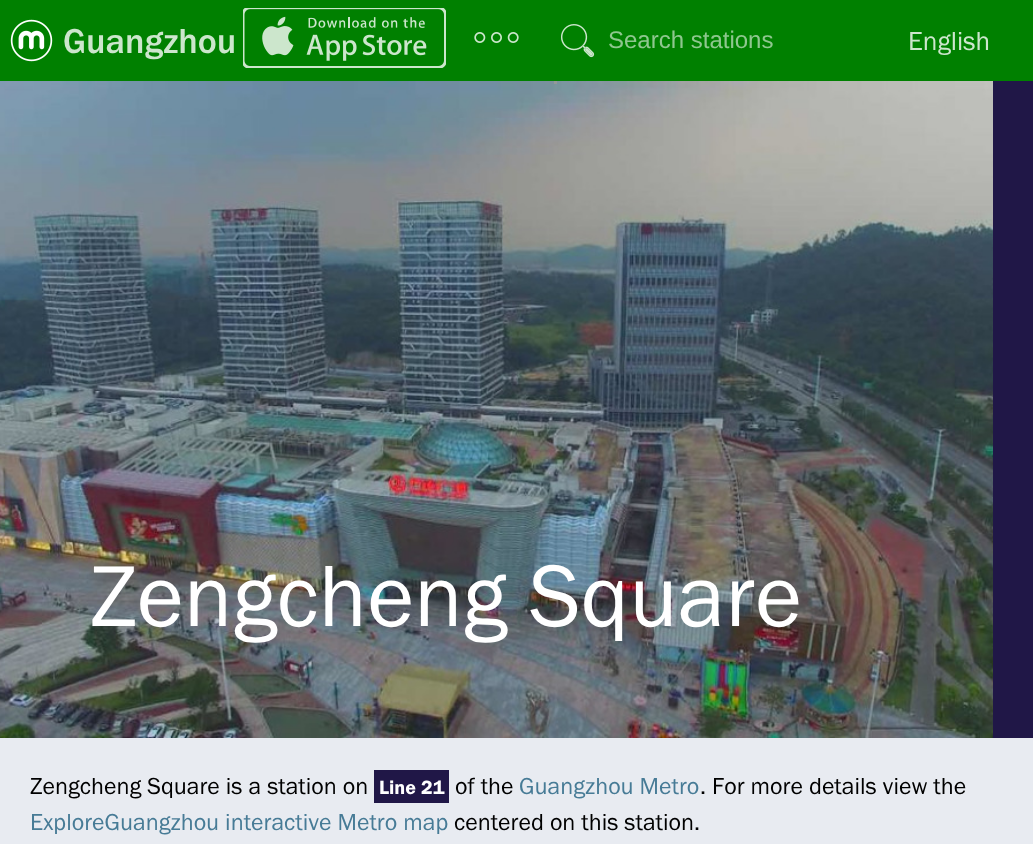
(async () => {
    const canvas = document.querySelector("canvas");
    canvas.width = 1033;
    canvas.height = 844;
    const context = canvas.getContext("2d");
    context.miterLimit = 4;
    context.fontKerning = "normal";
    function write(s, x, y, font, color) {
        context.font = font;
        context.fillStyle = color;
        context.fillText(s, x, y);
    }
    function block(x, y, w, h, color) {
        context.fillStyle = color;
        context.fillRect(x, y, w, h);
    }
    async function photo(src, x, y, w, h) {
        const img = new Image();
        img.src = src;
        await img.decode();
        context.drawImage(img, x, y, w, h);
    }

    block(0, 0, 1033, 844, "rgb(0, 128, 0)");
    await photo("media/1.png", 10, 19, 43, 43);
    write("Guangzhou", 63, 53, "36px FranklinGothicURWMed", "rgb(204, 230, 204)");
    await photo("media/2.png", 243, 8, 203, 60);
    await photo("media/3.png", 474, 32, 45, 11);
    await photo("media/4.png", 561, 24, 34, 34);
    write("Search stations", 608, 48, "24px Liberation Sans", "rgb(143, 199, 143)");
    await photo("media/5.png", 0, 81, 993, 657);
    block(554, 81, 3, 3, "rgb(147, 152, 154)");
    write("English", 908, 50, "27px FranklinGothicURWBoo", "rgb(204, 230, 204)");
    block(0, 738, 1033, 106, "rgb(232, 235, 241)");
    write("Zengcheng Square", 90, 626, "90px FranklinGothicURWBoo", "rgb(255, 255, 255)");
    block(993, 81, 40, 657, "rgb(32, 23, 71)");
    write("Zengcheng Square is a station on", 30, 794, "24px FranklinGothicURWBoo", "rgb(0, 0, 0)");
    block(374, 770, 75, 33, "rgb(32, 23, 71)");
    write("Line 21", 379, 794, "20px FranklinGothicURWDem", "rgb(255, 255, 255)");
    write("of the", 455, 794, "24px FranklinGothicURWBoo", "rgb(0, 0, 0)");
    write("Guangzhou Metro", 519, 794, "24px FranklinGothicURWBoo", "rgb(71, 123, 150)");
    write(". For more details view the", 700, 794, "24px FranklinGothicURWBoo", "rgb(0, 0, 0)");
    write("ExploreGuangzhou interactive Metro map", 30, 830, "24px FranklinGothicURWBoo", "rgb(71, 123, 150)");
    write("centered on this station.", 454, 830, "24px FranklinGothicURWBoo", "rgb(0, 0, 0)");
})();
